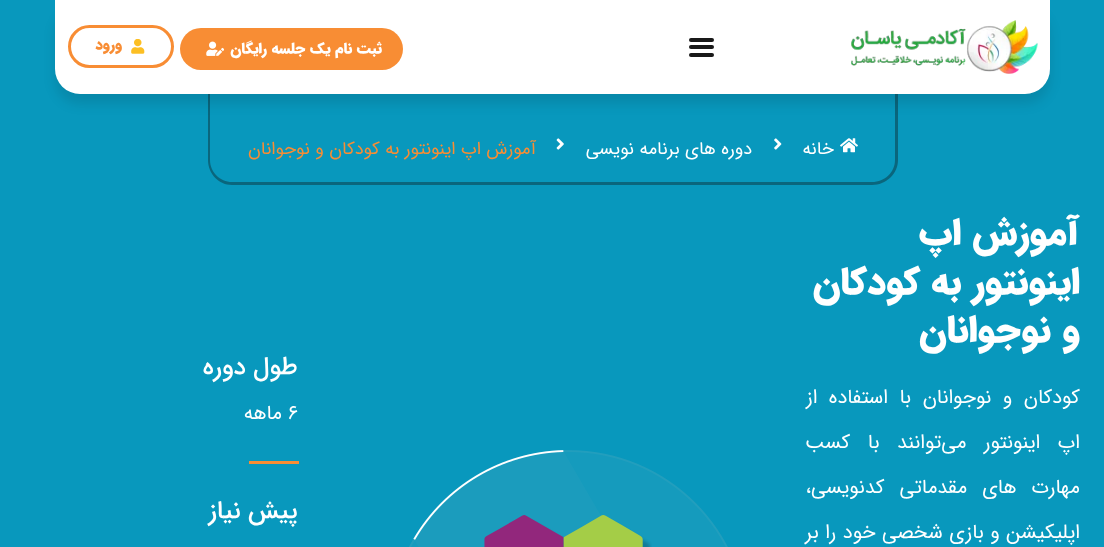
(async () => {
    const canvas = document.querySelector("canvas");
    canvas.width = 1104;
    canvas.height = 547;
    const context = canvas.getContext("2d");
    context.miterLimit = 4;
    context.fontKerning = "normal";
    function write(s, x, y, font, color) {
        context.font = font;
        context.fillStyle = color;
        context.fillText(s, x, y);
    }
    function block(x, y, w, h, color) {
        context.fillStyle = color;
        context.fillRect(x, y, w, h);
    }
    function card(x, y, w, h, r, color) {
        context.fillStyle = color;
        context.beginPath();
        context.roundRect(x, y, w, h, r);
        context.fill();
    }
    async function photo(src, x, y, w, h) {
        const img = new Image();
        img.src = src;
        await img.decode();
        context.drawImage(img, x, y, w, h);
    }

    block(0, 0, 1104, 547, "rgb(8, 152, 189)");
    context.fillStyle = "rgb(10, 102, 125)";
    context.beginPath();
    context.moveTo(208, 94);
    context.lineTo(898, 94);
    context.lineTo(898, 160);
    context.bezierCurveTo(898, 174, 886, 185, 872, 185);
    context.lineTo(232, 185);
    context.bezierCurveTo(219, 185, 208, 174, 208, 160);
    context.closePath();
    context.moveTo(210, 94);
    context.lineTo(895, 94);
    context.lineTo(895, 160);
    context.bezierCurveTo(895, 172, 885, 182, 872, 182);
    context.lineTo(232, 182);
    context.bezierCurveTo(220, 182, 210, 172, 210, 160);
    context.closePath();
    context.fill("evenodd");
    context.fillStyle = "rgba(0, 0, 0, 0.1)";
    context.filter = "blur(6px)";
    context.beginPath();
    context.roundRect(55, 10, 995, 94, 25);
    context.fill();
    context.filter = "none";
    context.fillStyle = "rgb(255, 255, 255)";
    context.beginPath();
    context.roundRect(55, 0, 995, 94, [0, 0, 25, 25]);
    context.fill();
    await photo("media/1.png", 851, 20, 187, 54);
    card(689, 45, 25, 4, 2, "rgb(25, 25, 25)");
    card(689, 38, 25, 4, 2, "rgb(25, 25, 25)");
    card(689, 53, 25, 4, 2, "rgb(25, 25, 25)");
    card(180, 28, 223, 42, 21, "rgb(248, 141, 52)");
    context.direction = "rtl";
    write("ثبت نام یک جلسه رایگان", 382, 53, "900 15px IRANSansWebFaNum", "rgb(255, 255, 255)");
    await photo("media/2.png", 206, 41, 18, 15);
    context.beginPath();
    context.roundRect(69.5, 26.5, 103, 40, 20);
    context.strokeStyle = "rgb(248, 141, 52)";
    context.lineWidth = 3;
    context.stroke();
    await photo("media/3.png", 131, 39, 14, 15);
    write("ورود", 122, 49, "900 15px IRANSansWebFaNum", "rgb(248, 141, 52)");
    await photo("media/4.png", 840, 138, 18, 15);
    write("خانه", 834, 154, "18px IRANSansWebFaNum", "rgb(255, 255, 255)");
    await photo("media/5.png", 774, 138, 8, 12);
    write("دوره های برنامه نویسی", 752, 154, "18px IRANSansWebFaNum", "rgb(255, 255, 255)");
    await photo("media/6.png", 556, 138, 8, 12);
    write("آموزش اپ اینونتور به کودکان و نوجوانان", 536, 154, "18px IRANSansWebFaNum", "rgb(248, 141, 52)");
    write("آموزش اپ", 1080, 244, "900 37.5px IRANSansWebFaNum", "rgb(255, 255, 255)");
    write("اینونتور به کودکان", 1080, 293, "900 37.5px IRANSansWebFaNum", "rgb(255, 255, 255)");
    write("و نوجوانان", 1080, 341, "900 37.5px IRANSansWebFaNum", "rgb(255, 255, 255)");
    context.wordSpacing = "5.5px";
    write("کودکان و نوجوانان با استفاده از", 1080, 403, "20px IRANSansWebFaNum", "rgb(255, 255, 255)");
    context.wordSpacing = "11.5px";
    write("اپ اینونتور می‌توانند با کسب", 1080, 448, "20px IRANSansWebFaNum", "rgb(255, 255, 255)");
    context.wordSpacing = "9px";
    write("مهارت های مقدماتی کدنویسی،", 1080, 493, "20px IRANSansWebFaNum", "rgb(255, 255, 255)");
    context.wordSpacing = "0.5px";
    write("اپلیکیشن و بازی شخصی خود را بر", 1080, 538, "20px IRANSansWebFaNum", "rgb(255, 255, 255)");
    await photo("media/7.png", 409, 450, 319, 97);
    await photo("media/8.png", 484, 515, 168, 32);
    context.wordSpacing = "0px";
    write("طول دوره", 298, 374, "500 25px IRANSansWebFaNum", "rgb(255, 255, 255)");
    context.direction = "ltr";
    write("6", 288, 419, "20px IRANSansWebFaNum", "rgb(255, 255, 255)");
    context.direction = "rtl";
    write("ماهه", 282, 419, "20px IRANSansWebFaNum", "rgb(255, 255, 255)");
    block(249, 461, 50, 3, "rgb(248, 141, 52)");
    write("پیش نیاز", 298, 518, "500 25px IRANSansWebFaNum", "rgb(255, 255, 255)");
})();
